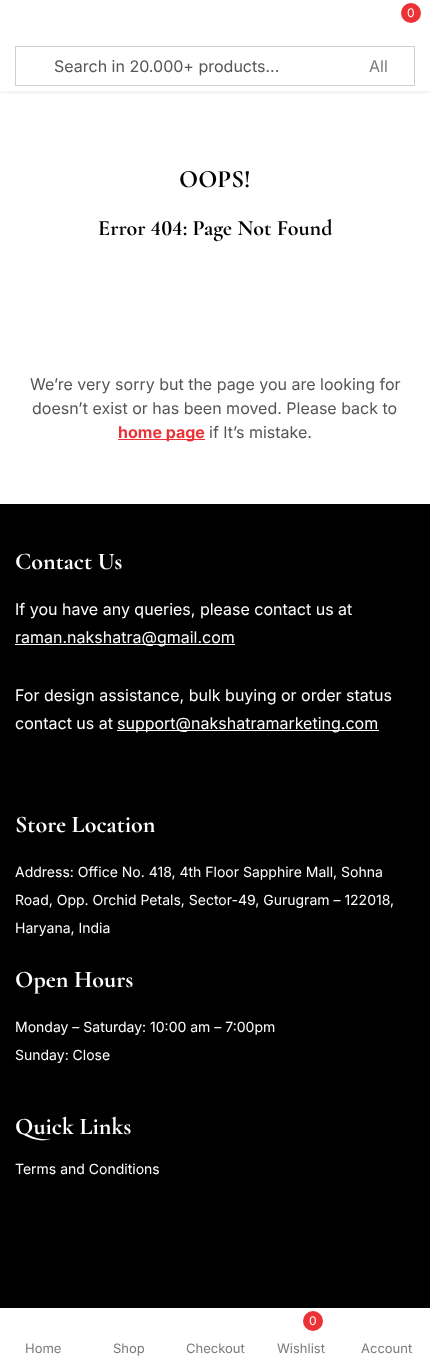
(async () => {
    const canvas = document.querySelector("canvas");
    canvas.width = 430;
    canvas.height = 1363;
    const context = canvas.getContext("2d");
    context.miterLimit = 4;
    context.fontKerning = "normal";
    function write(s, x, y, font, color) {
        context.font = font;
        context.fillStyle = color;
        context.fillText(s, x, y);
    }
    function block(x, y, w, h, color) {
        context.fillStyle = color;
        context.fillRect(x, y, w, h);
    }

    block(0, 0, 430, 1363, "rgb(255, 255, 255)");
    context.save();
    context.beginPath();
    context.rect(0, 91, 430, 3);
    context.clip();
    context.fillStyle = "rgba(0, 0, 0, 0.1)";
    context.filter = "blur(4px)";
    context.beginPath();
    context.rect(0, 0, 430, 91);
    context.fill();
    context.filter = "none";
    context.restore();
    context.fillStyle = "rgb(237, 50, 55)";
    context.beginPath();
    context.arc(411, 13, 10, 0, Math.PI * 2);
    context.fill();
    write("0", 407, 17, "12px Inter", "rgb(255, 255, 255)");
    context.strokeStyle = "rgb(208, 208, 208)";
    context.strokeRect(15.5, 46.5, 399, 39);
    write("Search in 20.000+ products...", 54, 72, "16px Inter", "rgb(85, 85, 85)");
    write("All", 369, 72, "16px Inter", "rgb(123, 123, 123)");
    write("OOPS!", 179, 187, "bold 25px Cormorant Garamond", "rgb(0, 0, 0)");
    write("Error 404: Page Not Found", 98, 235, "bold 22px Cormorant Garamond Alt", "rgb(0, 0, 0)");
    write("We’re very sorry but the page you are looking for", 30, 390, "16px Inter", "rgb(85, 85, 85)");
    write("doesn’t exist or has been moved. Please back to", 32, 414, "16px Inter", "rgb(85, 85, 85)");
    block(118, 439, 87, 1, "rgb(237, 50, 55)");
    write("home page", 118, 438, "bold 16px Inter", "rgb(237, 50, 55)");
    write("if It’s mistake.", 209, 438, "16px Inter", "rgb(85, 85, 85)");
    block(0, 504, 430, 804, "rgb(0, 0, 0)");
    write("Contact Us", 15, 569, "bold 24px Cormorant Garamond", "rgb(255, 255, 255)");
    write("If you have any queries, please contact us at", 15, 615, "16px Inter", "rgb(255, 255, 255)");
    block(15, 644, 220, 1, "rgb(255, 255, 255)");
    write("raman.nakshatra@gmail.com", 15, 643, "16px Inter", "rgb(255, 255, 255)");
    write("For design assistance, bulk buying or order status", 15, 701, "16px Inter", "rgb(255, 255, 255)");
    write("contact us at", 15, 729, "16px Inter", "rgb(255, 255, 255)");
    block(117, 730, 262, 1, "rgb(255, 255, 255)");
    write("support@nakshatramarketing.com", 117, 729, "16px Inter", "rgb(255, 255, 255)");
    write("Store Location", 15, 832, "bold 24px Cormorant Garamond", "rgb(255, 255, 255)");
    write("Address: Office No. 418, 4th Floor Sapphire Mall, Sohna", 15, 877, "14px Inter", "rgb(255, 255, 255)");
    write("Road, Opp. Orchid Petals, Sector-49, Gurugram – 122018,", 15, 905, "14px Inter", "rgb(255, 255, 255)");
    write("Haryana, India", 15, 933, "14px Inter", "rgb(255, 255, 255)");
    write("Open Hours", 15, 987, "bold 24px Cormorant Garamond", "rgb(255, 255, 255)");
    write("Monday – Saturday: 10:00 am – 7:00pm", 15, 1032, "14px Inter", "rgb(255, 255, 255)");
    write("Sunday: Close", 15, 1060, "14px Inter", "rgb(255, 255, 255)");
    write("Quick Links", 15, 1134, "bold 24px Cormorant Garamond", "rgb(255, 255, 255)");
    write("Terms and Conditions", 15, 1174, "14px Inter", "rgb(255, 255, 255)");
    write("Home", 25, 1353, "13px Inter", "rgb(123, 123, 123)");
    write("Shop", 113, 1353, "13px Inter", "rgb(123, 123, 123)");
    write("Checkout", 186, 1353, "13px Inter", "rgb(123, 123, 123)");
    context.fillStyle = "rgb(237, 50, 55)";
    context.beginPath();
    context.arc(313, 1321, 10, 0, Math.PI * 2);
    context.fill();
    write("0", 309, 1325, "12px Inter", "rgb(255, 255, 255)");
    write("Wishlist", 277, 1353, "13px Inter", "rgb(123, 123, 123)");
    write("Account", 361, 1353, "13px Inter", "rgb(123, 123, 123)");
})();
